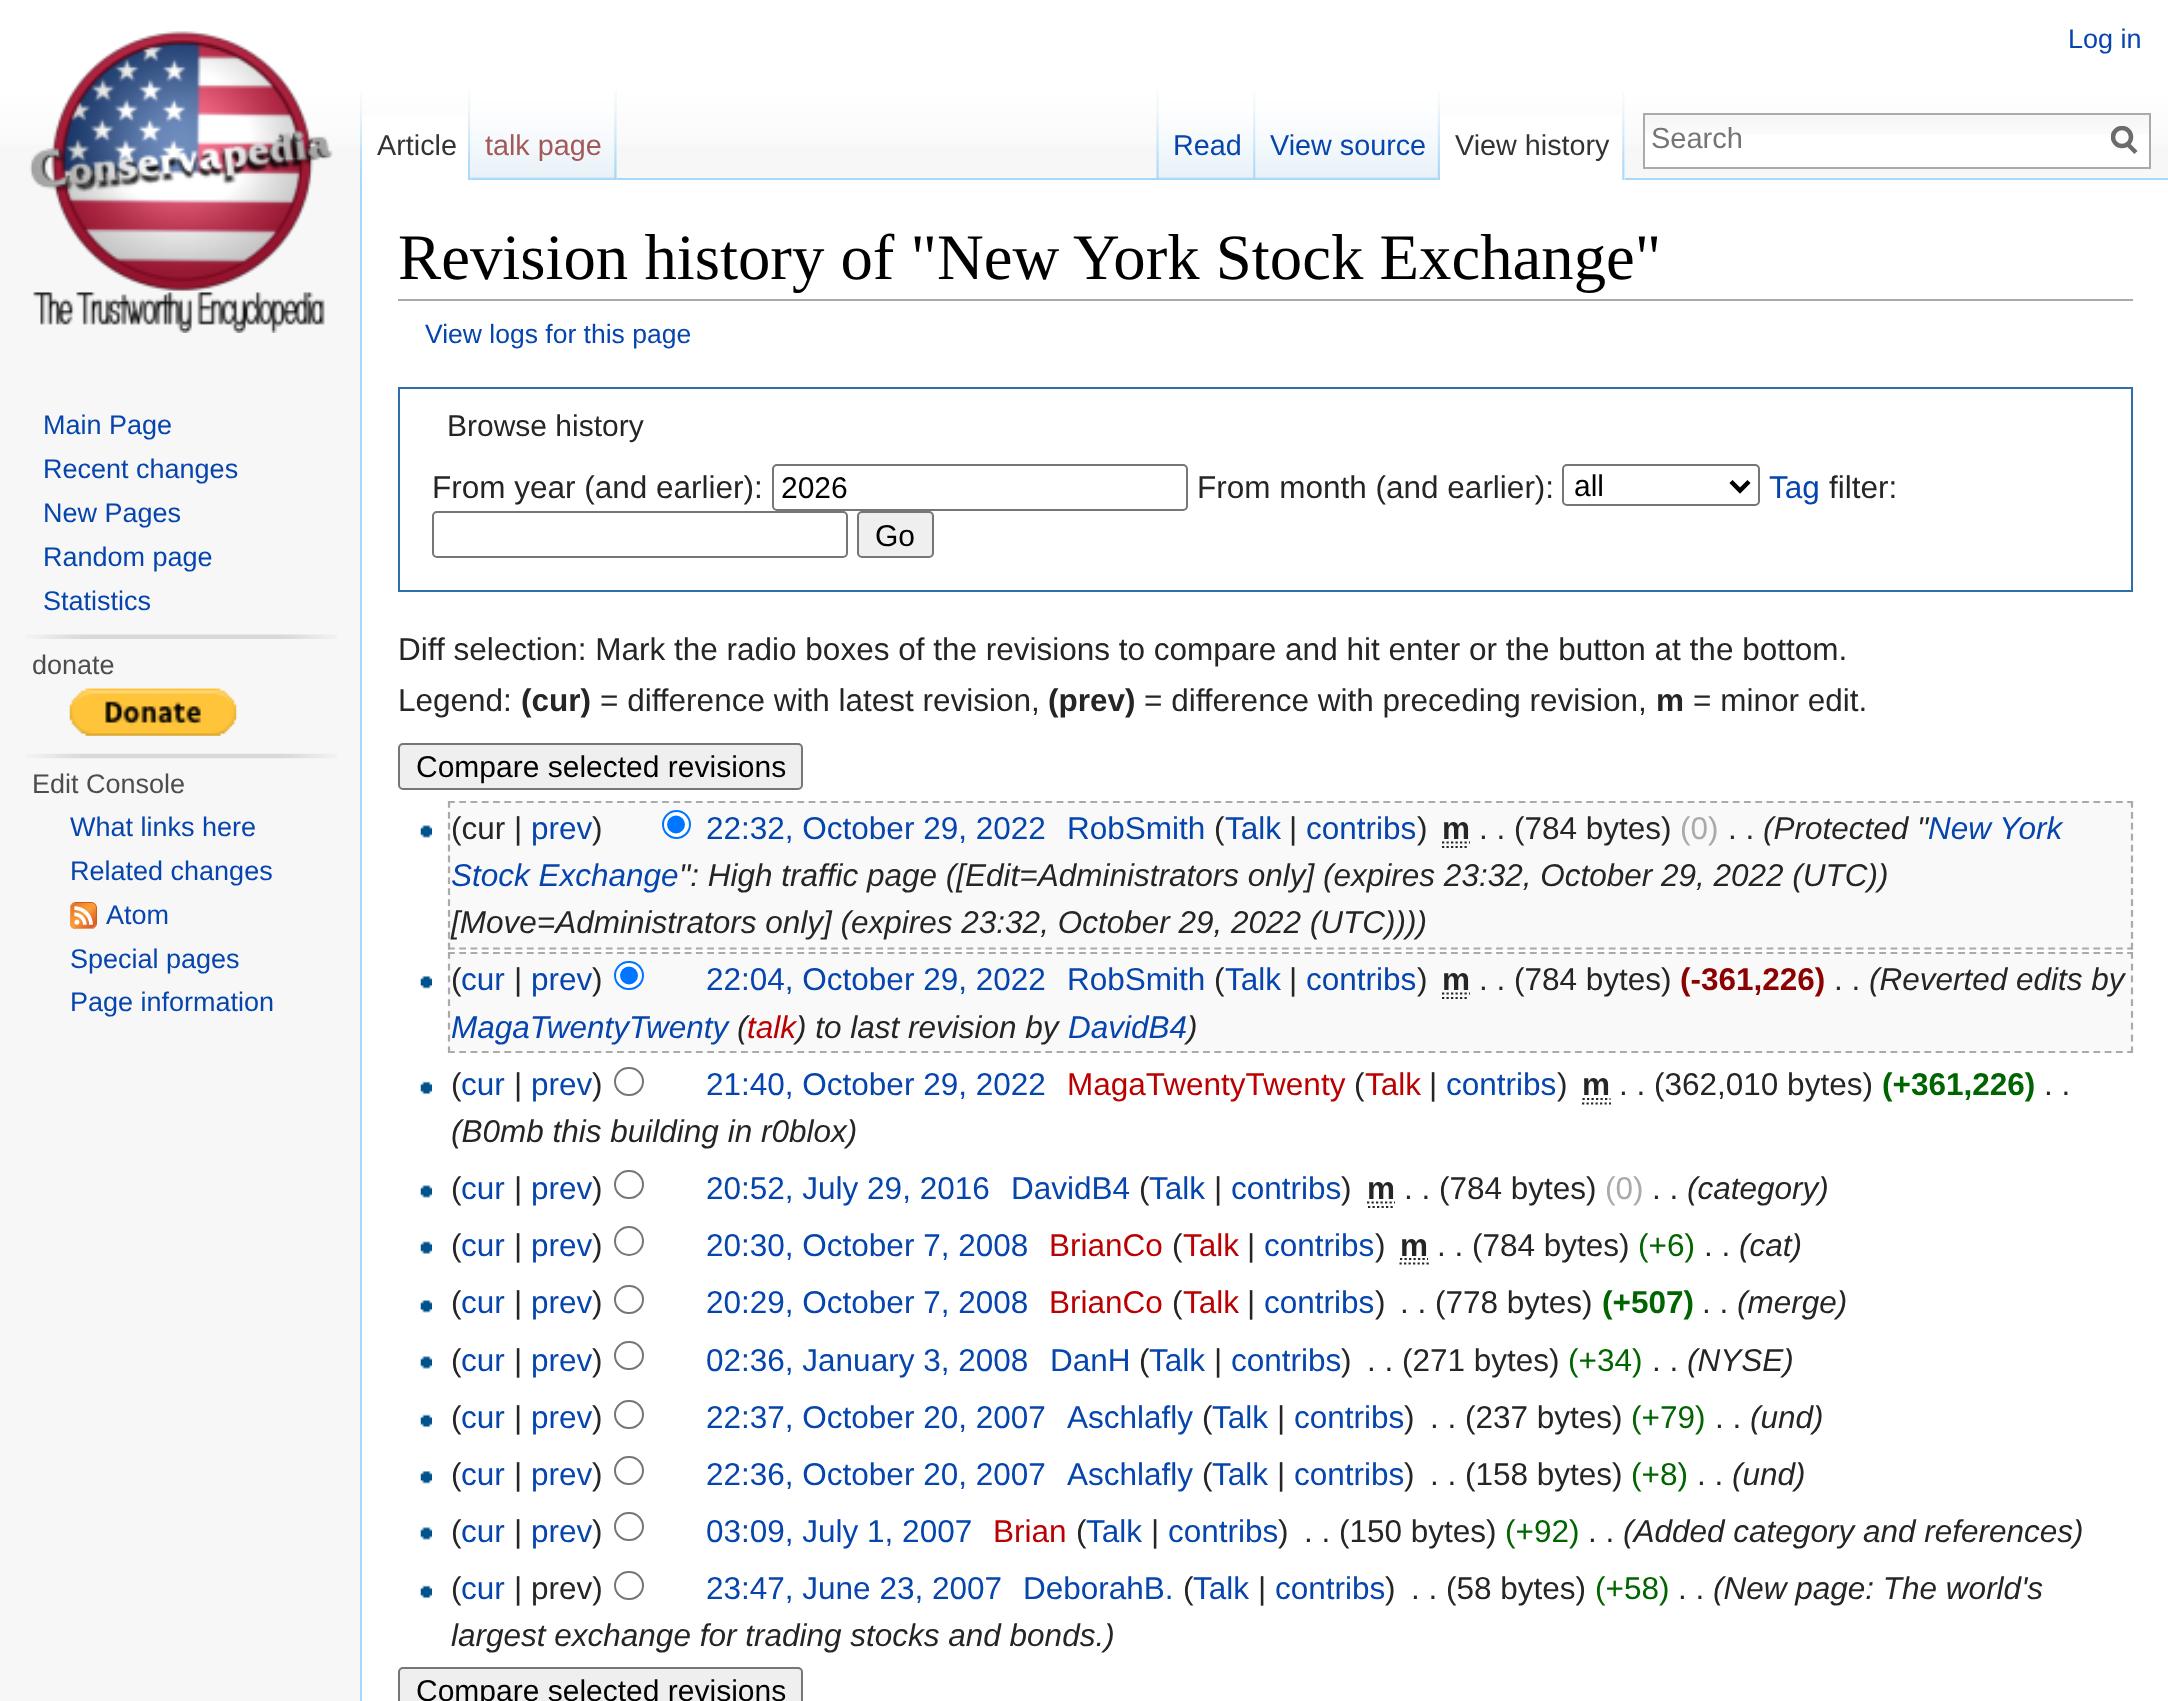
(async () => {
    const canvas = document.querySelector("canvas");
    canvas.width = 2168;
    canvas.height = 1701;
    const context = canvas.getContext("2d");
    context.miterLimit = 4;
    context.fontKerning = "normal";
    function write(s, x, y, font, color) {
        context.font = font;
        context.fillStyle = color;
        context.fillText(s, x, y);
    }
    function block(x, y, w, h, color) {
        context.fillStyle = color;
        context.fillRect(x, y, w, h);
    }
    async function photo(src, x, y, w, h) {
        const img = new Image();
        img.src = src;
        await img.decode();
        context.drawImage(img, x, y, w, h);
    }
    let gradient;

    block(0, 0, 2168, 1701, "rgb(247, 247, 247)");
    gradient = context.createLinearGradient(1085, 0, 1085, 180);
    gradient.addColorStop(0.5, "rgb(255, 255, 255)");
    gradient.addColorStop(1, "rgb(246, 246, 246)");
    context.fillStyle = gradient;
    context.fillRect(0, 0, 2168, 145);
    write("Log in", 2068, 48, "27px Liberation Sans", "rgb(6, 69, 173)");
    await photo("media/1.png", 360, 90, 2, 88);
    block(362, 115, 108, 65, "rgb(255, 255, 255)");
    await photo("media/2.png", 468, 91, 2, 89);
    write("Article", 377, 155, "28.75px Liberation Sans", "rgb(51, 51, 51)");
    block(470, 90, 147, 90, "rgb(243, 243, 243)");
    await photo("media/3.png", 470, 90, 147, 90);
    await photo("media/4.png", 614, 91, 3, 89);
    write("talk page", 485, 155, "28.75px Liberation Sans", "rgb(165, 88, 88)");
    await photo("media/5.png", 1156, 90, 3, 88);
    block(617, 178, 1551, 2, "rgb(167, 215, 249)");
    await photo("media/6.png", 1158, 90, 98, 90);
    await photo("media/4.png", 1253, 91, 3, 89);
    write("Read", 1173, 155, "28.75px Liberation Sans", "rgb(6, 69, 173)");
    await photo("media/7.png", 1255, 90, 185, 90);
    await photo("media/8.png", 1437, 91, 3, 88);
    write("View source", 1270, 155, "28.75px Liberation Sans", "rgb(6, 69, 173)");
    block(1440, 115, 185, 65, "rgb(255, 255, 255)");
    await photo("media/9.png", 1622, 91, 3, 89);
    write("View history", 1455, 155, "28.75px Liberation Sans", "rgb(51, 51, 51)");
    block(1645, 134, 504, 33, "rgb(255, 255, 255)");
    await photo("media/10.png", 1645, 115, 504, 19);
    context.strokeStyle = "rgb(170, 170, 170)";
    context.lineWidth = 2;
    context.strokeRect(1644, 114, 506, 54);
    write("Search", 1651, 148, "29px Liberation Sans", "rgb(117, 117, 117)");
    context.beginPath();
    context.moveTo(2136, 152.5);
    context.lineTo(2127, 143.5);
    context.strokeStyle = "rgb(108, 108, 108)";
    context.lineWidth = 4.5;
    context.stroke();
    context.save();
    context.beginPath();
    context.rect(2111, 126, 27, 29);
    context.clip();
    context.beginPath();
    context.arc(2122, 137, 9, 0, Math.PI * 2);
    context.stroke();
    context.restore();
    await photo("media/11.png", 29, 31, 304, 302);
    write("Main Page", 43, 434, "27px Liberation Sans", "rgb(6, 69, 173)");
    write("Recent changes", 43, 478, "27px Liberation Sans", "rgb(6, 69, 173)");
    write("New Pages", 43, 522, "27px Liberation Sans", "rgb(6, 69, 173)");
    write("Random page", 43, 566, "27px Liberation Sans", "rgb(6, 69, 173)");
    write("Statistics", 43, 610, "27px Liberation Sans", "rgb(6, 69, 173)");
    await photo("media/12.png", 26, 634, 311, 5);
    write("donate", 32, 674, "27px Liberation Sans", "rgb(77, 77, 77)");
    await photo("media/13.png", 69, 688, 168, 48);
    await photo("media/14.png", 26, 753, 311, 6);
    write("Edit Console", 32, 793, "27px Liberation Sans", "rgb(77, 77, 77)");
    write("What links here", 70, 836, "27px Liberation Sans", "rgb(6, 69, 173)");
    write("Related changes", 70, 880, "27px Liberation Sans", "rgb(6, 69, 173)");
    await photo("media/15.png", 70, 902, 27, 27);
    write("Atom", 106, 924, "27px Liberation Sans", "rgb(6, 69, 173)");
    write("Special pages", 70, 968, "27px Liberation Sans", "rgb(6, 69, 173)");
    write("Page information", 70, 1011, "27px Liberation Sans", "rgb(6, 69, 173)");
    block(362, 180, 1806, 1521, "rgb(255, 255, 255)");
    block(360, 178, 2, 1523, "rgb(167, 215, 249)");
    block(398, 299, 1735, 2, "rgb(170, 170, 170)");
    write("Revision history of \"New York Stock Exchange\"", 398, 279, "64.75px Liberation Serif", "rgb(0, 0, 0)");
    write("View logs for this page", 425, 343, "26.5px Liberation Sans", "rgb(6, 69, 173)");
    context.strokeStyle = "rgb(47, 111, 171)";
    context.lineWidth = 2;
    context.strokeRect(399, 388, 1733, 203);
    write("Browse history", 447, 436, "30px Liberation Sans", "rgb(37, 37, 37)");
    write("From year (and earlier):", 432, 498, "31.5px Liberation Sans", "rgb(37, 37, 37)");
    context.beginPath();
    context.roundRect(773, 465, 414, 45, 4);
    context.strokeStyle = "rgb(118, 118, 118)";
    context.stroke();
    write("2026", 781, 498, "30px Liberation Sans", "rgb(0, 0, 0)");
    write("From month (and earlier):", 1197, 498, "31.5px Liberation Sans", "rgb(37, 37, 37)");
    context.beginPath();
    context.roundRect(1563, 465, 196, 40, 4);
    context.stroke();
    context.beginPath();
    context.moveTo(1731, 481.5);
    context.lineTo(1740, 490.5);
    context.lineTo(1749, 481.5);
    context.strokeStyle = "rgb(0, 0, 0)";
    context.lineWidth = 4.5;
    context.stroke();
    write("all", 1574, 496, "30px Liberation Sans", "rgb(0, 0, 0)");
    write("Tag", 1769, 498, "31.5px Liberation Sans", "rgb(6, 69, 173)");
    write("filter:", 1829, 498, "31.5px Liberation Sans", "rgb(37, 37, 37)");
    context.beginPath();
    context.roundRect(433, 512, 414, 45, 4);
    context.strokeStyle = "rgb(118, 118, 118)";
    context.lineWidth = 2;
    context.stroke();
    context.fillStyle = "rgb(239, 239, 239)";
    context.beginPath();
    context.roundRect(858, 512, 75, 45, 4);
    context.fill();
    context.stroke();
    write("Go", 875, 546, "30px Liberation Sans", "rgb(0, 0, 0)");
    write("Diff selection: Mark the radio boxes of the revisions to compare and hit enter or the button at the bottom.", 398, 660, "31.5px Liberation Sans", "rgb(37, 37, 37)");
    write("Legend:", 398, 711, "31.5px Liberation Sans", "rgb(37, 37, 37)");
    write("(cur)", 521, 711, "bold 31.5px Liberation Sans", "rgb(37, 37, 37)");
    write("= difference with latest revision,", 600, 711, "31.5px Liberation Sans", "rgb(37, 37, 37)");
    write("(prev)", 1048, 711, "bold 31.5px Liberation Sans", "rgb(37, 37, 37)");
    write("= difference with preceding revision,", 1144, 711, "31.5px Liberation Sans", "rgb(37, 37, 37)");
    write("m", 1656, 711, "bold 31.5px Liberation Sans", "rgb(37, 37, 37)");
    write("= minor edit.", 1693, 711, "31.5px Liberation Sans", "rgb(37, 37, 37)");
    context.fillStyle = "rgb(239, 239, 239)";
    context.beginPath();
    context.roundRect(399, 744, 403, 45, 4);
    context.fill();
    context.stroke();
    write("Compare selected revisions", 416, 777, "30px Liberation Sans", "rgb(0, 0, 0)");
    block(448, 801, 1685, 149, "rgb(249, 249, 249)");
    context.beginPath();
    context.moveTo(448, 802);
    context.lineTo(2133, 802);
    context.strokeStyle = "rgb(170, 170, 170)";
    context.lineWidth = 2.2;
    context.setLineDash([6.75, 4.52]);
    context.stroke();
    context.beginPath();
    context.moveTo(2132, 801);
    context.lineTo(2132, 949.5);
    context.setLineDash([6.75, 4.16]);
    context.stroke();
    context.beginPath();
    context.moveTo(448, 948.5);
    context.lineTo(2133, 948.5);
    context.setLineDash([6.75, 4.52]);
    context.stroke();
    context.beginPath();
    context.moveTo(449, 801);
    context.lineTo(449, 949.5);
    context.setLineDash([6.75, 4.16]);
    context.stroke();
    await photo("media/16.png", 420, 825, 12, 13);
    write("(cur |", 451, 839, "31.5px Liberation Sans", "rgb(37, 37, 37)");
    write("prev", 531, 839, "31.5px Liberation Sans", "rgb(6, 69, 173)");
    write(")", 592, 839, "31.5px Liberation Sans", "rgb(37, 37, 37)");
    context.fillStyle = "rgb(255, 255, 255)";
    context.beginPath();
    context.arc(676.5, 824.5, 13.5, 0, Math.PI * 2);
    context.fill();
    context.strokeStyle = "rgb(0, 117, 255)";
    context.lineWidth = 2;
    context.setLineDash([]);
    context.stroke();
    context.fillStyle = "rgb(0, 117, 255)";
    context.beginPath();
    context.arc(676, 824.5, 9, 0, Math.PI * 2);
    context.fill();
    write("22:32, October 29, 2022", 706, 839, "31.5px Liberation Sans", "rgb(6, 69, 173)");
    write("RobSmith", 1067, 839, "31.5px Liberation Sans", "rgb(6, 69, 173)");
    write("(", 1214, 839, "31.5px Liberation Sans", "rgb(37, 37, 37)");
    write("Talk", 1225, 839, "31.5px Liberation Sans", "rgb(6, 69, 173)");
    write("|", 1289, 839, "31.5px Liberation Sans", "rgb(37, 37, 37)");
    write("contribs", 1306, 839, "31.5px Liberation Sans", "rgb(6, 69, 173)");
    write(")", 1417, 839, "31.5px Liberation Sans", "rgb(37, 37, 37)");
    write("m", 1442, 839, "bold 31.5px Liberation Sans", "rgb(37, 37, 37)");
    context.beginPath();
    context.moveTo(1442, 847);
    context.lineTo(1469, 847);
    context.moveTo(1442, 842.5);
    context.lineTo(1470, 842.5);
    context.strokeStyle = "rgb(37, 37, 37)";
    context.lineWidth = 2.2;
    context.setLineDash([2.25, 2.25]);
    context.stroke();
    write(". . (784 bytes)", 1479, 839, "31.5px Liberation Sans", "rgb(37, 37, 37)");
    write("(0)", 1680, 839, "31.5px Liberation Sans", "rgb(170, 170, 170)");
    write(". .", 1728, 839, "31.5px Liberation Sans", "rgb(37, 37, 37)");
    write("(Protected \"", 1763, 839, "italic 31.5px Liberation Sans", "rgb(37, 37, 37)");
    write("New York", 1928, 839, "italic 31.5px Liberation Sans", "rgb(6, 69, 173)");
    write("Stock Exchange", 451, 886, "italic 31.5px Liberation Sans", "rgb(6, 69, 173)");
    write("\": High traffic page ([Edit=Administrators only] (expires 23:32, October 29, 2022 (UTC))", 679, 886, "italic 31.5px Liberation Sans", "rgb(37, 37, 37)");
    write("[Move=Administrators only] (expires 23:32, October 29, 2022 (UTC))))", 451, 933, "italic 31.5px Liberation Sans", "rgb(37, 37, 37)");
    block(448, 952, 1685, 101, "rgb(249, 249, 249)");
    context.beginPath();
    context.moveTo(448, 953);
    context.lineTo(2133, 953);
    context.strokeStyle = "rgb(170, 170, 170)";
    context.setLineDash([6.75, 4.52]);
    context.stroke();
    context.beginPath();
    context.moveTo(2132, 952);
    context.lineTo(2132, 1053);
    context.setLineDash([6.75, 5.06]);
    context.stroke();
    context.beginPath();
    context.moveTo(448, 1052);
    context.lineTo(2133, 1052);
    context.setLineDash([6.75, 4.52]);
    context.stroke();
    context.beginPath();
    context.moveTo(449, 952);
    context.lineTo(449, 1053);
    context.setLineDash([6.75, 5.06]);
    context.stroke();
    await photo("media/17.png", 420, 976, 12, 13);
    write("(", 451, 990, "31.5px Liberation Sans", "rgb(37, 37, 37)");
    write("cur", 461, 990, "31.5px Liberation Sans", "rgb(6, 69, 173)");
    write("|", 514, 990, "31.5px Liberation Sans", "rgb(37, 37, 37)");
    write("prev", 531, 990, "31.5px Liberation Sans", "rgb(6, 69, 173)");
    write(")", 592, 990, "31.5px Liberation Sans", "rgb(37, 37, 37)");
    context.fillStyle = "rgb(255, 255, 255)";
    context.beginPath();
    context.roundRect(615, 962, 28, 27, 13.5);
    context.fill();
    context.strokeStyle = "rgb(0, 117, 255)";
    context.lineWidth = 2;
    context.setLineDash([]);
    context.stroke();
    context.fillStyle = "rgb(0, 117, 255)";
    context.beginPath();
    context.arc(629, 975.5, 9, 0, Math.PI * 2);
    context.fill();
    write("22:04, October 29, 2022", 706, 990, "31.5px Liberation Sans", "rgb(6, 69, 173)");
    write("RobSmith", 1067, 990, "31.5px Liberation Sans", "rgb(6, 69, 173)");
    write("(", 1214, 990, "31.5px Liberation Sans", "rgb(37, 37, 37)");
    write("Talk", 1225, 990, "31.5px Liberation Sans", "rgb(6, 69, 173)");
    write("|", 1289, 990, "31.5px Liberation Sans", "rgb(37, 37, 37)");
    write("contribs", 1306, 990, "31.5px Liberation Sans", "rgb(6, 69, 173)");
    write(")", 1417, 990, "31.5px Liberation Sans", "rgb(37, 37, 37)");
    write("m", 1442, 990, "bold 31.5px Liberation Sans", "rgb(37, 37, 37)");
    context.beginPath();
    context.moveTo(1442, 998);
    context.lineTo(1469, 998);
    context.moveTo(1442, 993.5);
    context.lineTo(1470, 993.5);
    context.strokeStyle = "rgb(37, 37, 37)";
    context.lineWidth = 2.2;
    context.setLineDash([2.25, 2.25]);
    context.stroke();
    write(". . (784 bytes)", 1479, 990, "31.5px Liberation Sans", "rgb(37, 37, 37)");
    write("(-361,226)", 1680, 990, "bold 31.5px Liberation Sans", "rgb(139, 0, 0)");
    write(". .", 1834, 990, "31.5px Liberation Sans", "rgb(37, 37, 37)");
    write("(Reverted edits by", 1869, 990, "italic 31.5px Liberation Sans", "rgb(37, 37, 37)");
    write("MagaTwentyTwenty", 451, 1038, "italic 31.5px Liberation Sans", "rgb(6, 69, 173)");
    write("(", 737, 1038, "italic 31.5px Liberation Sans", "rgb(37, 37, 37)");
    write("talk", 747, 1038, "italic 31.5px Liberation Sans", "rgb(186, 0, 0)");
    write(") to last revision by", 796, 1038, "italic 31.5px Liberation Sans", "rgb(37, 37, 37)");
    write("DavidB4", 1068, 1038, "italic 31.5px Liberation Sans", "rgb(6, 69, 173)");
    write(")", 1187, 1038, "italic 31.5px Liberation Sans", "rgb(37, 37, 37)");
    await photo("media/18.png", 420, 1081, 12, 14);
    write("(", 451, 1095, "31.5px Liberation Sans", "rgb(37, 37, 37)");
    write("cur", 461, 1095, "31.5px Liberation Sans", "rgb(6, 69, 173)");
    write("|", 514, 1095, "31.5px Liberation Sans", "rgb(37, 37, 37)");
    write("prev", 531, 1095, "31.5px Liberation Sans", "rgb(6, 69, 173)");
    write(")", 592, 1095, "31.5px Liberation Sans", "rgb(37, 37, 37)");
    context.beginPath();
    context.roundRect(615, 1068, 28, 27, 13.5);
    context.strokeStyle = "rgb(118, 118, 118)";
    context.lineWidth = 2;
    context.setLineDash([]);
    context.stroke();
    write("21:40, October 29, 2022", 706, 1095, "31.5px Liberation Sans", "rgb(6, 69, 173)");
    write("MagaTwentyTwenty", 1067, 1095, "31.5px Liberation Sans", "rgb(186, 0, 0)");
    write("(", 1354, 1095, "31.5px Liberation Sans", "rgb(37, 37, 37)");
    write("Talk", 1365, 1095, "31.5px Liberation Sans", "rgb(186, 0, 0)");
    write("|", 1429, 1095, "31.5px Liberation Sans", "rgb(37, 37, 37)");
    write("contribs", 1446, 1095, "31.5px Liberation Sans", "rgb(6, 69, 173)");
    write(")", 1557, 1095, "31.5px Liberation Sans", "rgb(37, 37, 37)");
    write("m", 1582, 1095, "bold 31.5px Liberation Sans", "rgb(37, 37, 37)");
    context.beginPath();
    context.moveTo(1582, 1103.5);
    context.lineTo(1611, 1103.5);
    context.moveTo(1582.5, 1099);
    context.lineTo(1610.5, 1099);
    context.strokeStyle = "rgb(37, 37, 37)";
    context.lineWidth = 2.2;
    context.setLineDash([2.25, 2.25]);
    context.stroke();
    write(". . (362,010 bytes)", 1619, 1095, "31.5px Liberation Sans", "rgb(37, 37, 37)");
    write("(+361,226)", 1882, 1095, "bold 31.5px Liberation Sans", "rgb(0, 100, 0)");
    write(". .", 2044, 1095, "31.5px Liberation Sans", "rgb(37, 37, 37)");
    write("(B0mb this building in r0blox)", 451, 1142, "italic 31.5px Liberation Sans", "rgb(37, 37, 37)");
    await photo("media/16.png", 420, 1185, 12, 13);
    write("(", 451, 1199, "31.5px Liberation Sans", "rgb(37, 37, 37)");
    write("cur", 461, 1199, "31.5px Liberation Sans", "rgb(6, 69, 173)");
    write("|", 514, 1199, "31.5px Liberation Sans", "rgb(37, 37, 37)");
    write("prev", 531, 1199, "31.5px Liberation Sans", "rgb(6, 69, 173)");
    write(")", 592, 1199, "31.5px Liberation Sans", "rgb(37, 37, 37)");
    context.beginPath();
    context.roundRect(615, 1171, 28, 27, 13.5);
    context.strokeStyle = "rgb(118, 118, 118)";
    context.lineWidth = 2;
    context.setLineDash([]);
    context.stroke();
    write("20:52, July 29, 2016", 706, 1199, "31.5px Liberation Sans", "rgb(6, 69, 173)");
    write("DavidB4", 1011, 1199, "31.5px Liberation Sans", "rgb(6, 69, 173)");
    write("(", 1139, 1199, "31.5px Liberation Sans", "rgb(37, 37, 37)");
    write("Talk", 1149, 1199, "31.5px Liberation Sans", "rgb(6, 69, 173)");
    write("|", 1214, 1199, "31.5px Liberation Sans", "rgb(37, 37, 37)");
    write("contribs", 1231, 1199, "31.5px Liberation Sans", "rgb(6, 69, 173)");
    write(")", 1341, 1199, "31.5px Liberation Sans", "rgb(37, 37, 37)");
    write("m", 1367, 1199, "bold 31.5px Liberation Sans", "rgb(37, 37, 37)");
    context.beginPath();
    context.moveTo(1368, 1207);
    context.lineTo(1395, 1207);
    context.moveTo(1367, 1202.5);
    context.lineTo(1395, 1202.5);
    context.strokeStyle = "rgb(37, 37, 37)";
    context.lineWidth = 2.2;
    context.setLineDash([2.25, 2.25]);
    context.stroke();
    write(". . (784 bytes)", 1404, 1199, "31.5px Liberation Sans", "rgb(37, 37, 37)");
    write("(0)", 1605, 1199, "31.5px Liberation Sans", "rgb(170, 170, 170)");
    write(". .", 1652, 1199, "31.5px Liberation Sans", "rgb(37, 37, 37)");
    write("(category)", 1687, 1199, "italic 31.5px Liberation Sans", "rgb(37, 37, 37)");
    await photo("media/19.png", 420, 1241, 12, 13);
    write("(", 451, 1256, "31.5px Liberation Sans", "rgb(37, 37, 37)");
    write("cur", 461, 1256, "31.5px Liberation Sans", "rgb(6, 69, 173)");
    write("|", 514, 1256, "31.5px Liberation Sans", "rgb(37, 37, 37)");
    write("prev", 531, 1256, "31.5px Liberation Sans", "rgb(6, 69, 173)");
    write(")", 592, 1256, "31.5px Liberation Sans", "rgb(37, 37, 37)");
    context.beginPath();
    context.arc(629, 1241, 14, 0, Math.PI * 2);
    context.strokeStyle = "rgb(118, 118, 118)";
    context.lineWidth = 2;
    context.setLineDash([]);
    context.stroke();
    write("20:30, October 7, 2008", 706, 1256, "31.5px Liberation Sans", "rgb(6, 69, 173)");
    write("BrianCo", 1049, 1256, "31.5px Liberation Sans", "rgb(186, 0, 0)");
    write("(", 1172, 1256, "31.5px Liberation Sans", "rgb(37, 37, 37)");
    write("Talk", 1183, 1256, "31.5px Liberation Sans", "rgb(186, 0, 0)");
    write("|", 1247, 1256, "31.5px Liberation Sans", "rgb(37, 37, 37)");
    write("contribs", 1264, 1256, "31.5px Liberation Sans", "rgb(6, 69, 173)");
    write(")", 1375, 1256, "31.5px Liberation Sans", "rgb(37, 37, 37)");
    write("m", 1400, 1256, "bold 31.5px Liberation Sans", "rgb(37, 37, 37)");
    context.beginPath();
    context.moveTo(1399.5, 1263.5);
    context.lineTo(1429, 1263.5);
    context.moveTo(1400, 1259);
    context.lineTo(1428, 1259);
    context.strokeStyle = "rgb(37, 37, 37)";
    context.lineWidth = 2.2;
    context.setLineDash([2.25, 2.25]);
    context.stroke();
    write(". . (784 bytes)", 1437, 1256, "31.5px Liberation Sans", "rgb(37, 37, 37)");
    write("(+6)", 1638, 1256, "31.5px Liberation Sans", "rgb(0, 100, 0)");
    write(". .", 1704, 1256, "31.5px Liberation Sans", "rgb(37, 37, 37)");
    write("(cat)", 1739, 1256, "italic 31.5px Liberation Sans", "rgb(37, 37, 37)");
    await photo("media/20.png", 420, 1300, 12, 13);
    write("(", 451, 1313, "31.5px Liberation Sans", "rgb(37, 37, 37)");
    write("cur", 461, 1313, "31.5px Liberation Sans", "rgb(6, 69, 173)");
    write("|", 514, 1313, "31.5px Liberation Sans", "rgb(37, 37, 37)");
    write("prev", 531, 1313, "31.5px Liberation Sans", "rgb(6, 69, 173)");
    write(")", 592, 1313, "31.5px Liberation Sans", "rgb(37, 37, 37)");
    context.beginPath();
    context.roundRect(615, 1286, 28, 27, 13.5);
    context.strokeStyle = "rgb(118, 118, 118)";
    context.lineWidth = 2;
    context.setLineDash([]);
    context.stroke();
    write("20:29, October 7, 2008", 706, 1313, "31.5px Liberation Sans", "rgb(6, 69, 173)");
    write("BrianCo", 1049, 1313, "31.5px Liberation Sans", "rgb(186, 0, 0)");
    write("(", 1172, 1313, "31.5px Liberation Sans", "rgb(37, 37, 37)");
    write("Talk", 1183, 1313, "31.5px Liberation Sans", "rgb(186, 0, 0)");
    write("|", 1247, 1313, "31.5px Liberation Sans", "rgb(37, 37, 37)");
    write("contribs", 1264, 1313, "31.5px Liberation Sans", "rgb(6, 69, 173)");
    write(")", 1375, 1313, "31.5px Liberation Sans", "rgb(37, 37, 37)");
    write(". . (778 bytes)", 1400, 1313, "31.5px Liberation Sans", "rgb(37, 37, 37)");
    write("(+507)", 1602, 1313, "bold 31.5px Liberation Sans", "rgb(0, 100, 0)");
    write(". .", 1702, 1313, "31.5px Liberation Sans", "rgb(37, 37, 37)");
    write("(merge)", 1737, 1313, "italic 31.5px Liberation Sans", "rgb(37, 37, 37)");
    await photo("media/16.png", 420, 1356, 12, 13);
    write("(", 451, 1371, "31.5px Liberation Sans", "rgb(37, 37, 37)");
    write("cur", 461, 1371, "31.5px Liberation Sans", "rgb(6, 69, 173)");
    write("|", 514, 1371, "31.5px Liberation Sans", "rgb(37, 37, 37)");
    write("prev", 531, 1371, "31.5px Liberation Sans", "rgb(6, 69, 173)");
    write(")", 592, 1371, "31.5px Liberation Sans", "rgb(37, 37, 37)");
    context.beginPath();
    context.roundRect(615, 1342, 28, 27, 13.5);
    context.stroke();
    write("02:36, January 3, 2008", 706, 1371, "31.5px Liberation Sans", "rgb(6, 69, 173)");
    write("DanH", 1050, 1371, "31.5px Liberation Sans", "rgb(6, 69, 173)");
    write("(", 1139, 1371, "31.5px Liberation Sans", "rgb(37, 37, 37)");
    write("Talk", 1149, 1371, "31.5px Liberation Sans", "rgb(6, 69, 173)");
    write("|", 1214, 1371, "31.5px Liberation Sans", "rgb(37, 37, 37)");
    write("contribs", 1231, 1371, "31.5px Liberation Sans", "rgb(6, 69, 173)");
    write(")", 1341, 1371, "31.5px Liberation Sans", "rgb(37, 37, 37)");
    write(". . (271 bytes)", 1367, 1371, "31.5px Liberation Sans", "rgb(37, 37, 37)");
    write("(+34)", 1568, 1371, "31.5px Liberation Sans", "rgb(0, 100, 0)");
    write(". .", 1652, 1371, "31.5px Liberation Sans", "rgb(37, 37, 37)");
    write("(NYSE)", 1687, 1371, "italic 31.5px Liberation Sans", "rgb(37, 37, 37)");
    await photo("media/18.png", 420, 1414, 12, 14);
    write("(", 451, 1428, "31.5px Liberation Sans", "rgb(37, 37, 37)");
    write("cur", 461, 1428, "31.5px Liberation Sans", "rgb(6, 69, 173)");
    write("|", 514, 1428, "31.5px Liberation Sans", "rgb(37, 37, 37)");
    write("prev", 531, 1428, "31.5px Liberation Sans", "rgb(6, 69, 173)");
    write(")", 592, 1428, "31.5px Liberation Sans", "rgb(37, 37, 37)");
    context.beginPath();
    context.roundRect(615, 1401, 28, 27, 13.5);
    context.stroke();
    write("22:37, October 20, 2007", 706, 1428, "31.5px Liberation Sans", "rgb(6, 69, 173)");
    write("Aschlafly", 1067, 1428, "31.5px Liberation Sans", "rgb(6, 69, 173)");
    write("(", 1202, 1428, "31.5px Liberation Sans", "rgb(37, 37, 37)");
    write("Talk", 1212, 1428, "31.5px Liberation Sans", "rgb(6, 69, 173)");
    write("|", 1277, 1428, "31.5px Liberation Sans", "rgb(37, 37, 37)");
    write("contribs", 1294, 1428, "31.5px Liberation Sans", "rgb(6, 69, 173)");
    write(")", 1404, 1428, "31.5px Liberation Sans", "rgb(37, 37, 37)");
    write(". . (237 bytes)", 1430, 1428, "31.5px Liberation Sans", "rgb(37, 37, 37)");
    write("(+79)", 1631, 1428, "31.5px Liberation Sans", "rgb(0, 100, 0)");
    write(". .", 1715, 1428, "31.5px Liberation Sans", "rgb(37, 37, 37)");
    write("(und)", 1750, 1428, "italic 31.5px Liberation Sans", "rgb(37, 37, 37)");
    await photo("media/17.png", 420, 1471, 12, 13);
    write("(", 451, 1485, "31.5px Liberation Sans", "rgb(37, 37, 37)");
    write("cur", 461, 1485, "31.5px Liberation Sans", "rgb(6, 69, 173)");
    write("|", 514, 1485, "31.5px Liberation Sans", "rgb(37, 37, 37)");
    write("prev", 531, 1485, "31.5px Liberation Sans", "rgb(6, 69, 173)");
    write(")", 592, 1485, "31.5px Liberation Sans", "rgb(37, 37, 37)");
    context.beginPath();
    context.roundRect(615, 1457, 28, 27, 13.5);
    context.stroke();
    write("22:36, October 20, 2007", 706, 1485, "31.5px Liberation Sans", "rgb(6, 69, 173)");
    write("Aschlafly", 1067, 1485, "31.5px Liberation Sans", "rgb(6, 69, 173)");
    write("(", 1202, 1485, "31.5px Liberation Sans", "rgb(37, 37, 37)");
    write("Talk", 1212, 1485, "31.5px Liberation Sans", "rgb(6, 69, 173)");
    write("|", 1277, 1485, "31.5px Liberation Sans", "rgb(37, 37, 37)");
    write("contribs", 1294, 1485, "31.5px Liberation Sans", "rgb(6, 69, 173)");
    write(")", 1404, 1485, "31.5px Liberation Sans", "rgb(37, 37, 37)");
    write(". . (158 bytes)", 1430, 1485, "31.5px Liberation Sans", "rgb(37, 37, 37)");
    write("(+8)", 1631, 1485, "31.5px Liberation Sans", "rgb(0, 100, 0)");
    write(". .", 1697, 1485, "31.5px Liberation Sans", "rgb(37, 37, 37)");
    write("(und)", 1732, 1485, "italic 31.5px Liberation Sans", "rgb(37, 37, 37)");
    await photo("media/16.png", 420, 1527, 12, 13);
    write("(", 451, 1542, "31.5px Liberation Sans", "rgb(37, 37, 37)");
    write("cur", 461, 1542, "31.5px Liberation Sans", "rgb(6, 69, 173)");
    write("|", 514, 1542, "31.5px Liberation Sans", "rgb(37, 37, 37)");
    write("prev", 531, 1542, "31.5px Liberation Sans", "rgb(6, 69, 173)");
    write(")", 592, 1542, "31.5px Liberation Sans", "rgb(37, 37, 37)");
    context.beginPath();
    context.roundRect(615, 1513, 28, 27, 13.5);
    context.stroke();
    write("03:09, July 1, 2007", 706, 1542, "31.5px Liberation Sans", "rgb(6, 69, 173)");
    write("Brian", 993, 1542, "31.5px Liberation Sans", "rgb(186, 0, 0)");
    write("(", 1076, 1542, "31.5px Liberation Sans", "rgb(37, 37, 37)");
    write("Talk", 1086, 1542, "31.5px Liberation Sans", "rgb(6, 69, 173)");
    write("|", 1151, 1542, "31.5px Liberation Sans", "rgb(37, 37, 37)");
    write("contribs", 1168, 1542, "31.5px Liberation Sans", "rgb(6, 69, 173)");
    write(")", 1278, 1542, "31.5px Liberation Sans", "rgb(37, 37, 37)");
    write(". . (150 bytes)", 1304, 1542, "31.5px Liberation Sans", "rgb(37, 37, 37)");
    write("(+92)", 1505, 1542, "31.5px Liberation Sans", "rgb(0, 100, 0)");
    write(". .", 1588, 1542, "31.5px Liberation Sans", "rgb(37, 37, 37)");
    write("(Added category and references)", 1623, 1542, "italic 31.5px Liberation Sans", "rgb(37, 37, 37)");
    await photo("media/18.png", 420, 1585, 12, 14);
    write("(", 451, 1599, "31.5px Liberation Sans", "rgb(37, 37, 37)");
    write("cur", 461, 1599, "31.5px Liberation Sans", "rgb(6, 69, 173)");
    write("| prev)", 514, 1599, "31.5px Liberation Sans", "rgb(37, 37, 37)");
    context.beginPath();
    context.roundRect(615, 1572, 28, 27, 13.5);
    context.stroke();
    write("23:47, June 23, 2007", 706, 1599, "31.5px Liberation Sans", "rgb(6, 69, 173)");
    write("DeborahB.", 1023, 1599, "31.5px Liberation Sans", "rgb(6, 69, 173)");
    write("(", 1183, 1599, "31.5px Liberation Sans", "rgb(37, 37, 37)");
    write("Talk", 1193, 1599, "31.5px Liberation Sans", "rgb(6, 69, 173)");
    write("|", 1258, 1599, "31.5px Liberation Sans", "rgb(37, 37, 37)");
    write("contribs", 1275, 1599, "31.5px Liberation Sans", "rgb(6, 69, 173)");
    write(")", 1385, 1599, "31.5px Liberation Sans", "rgb(37, 37, 37)");
    write(". . (58 bytes)", 1411, 1599, "31.5px Liberation Sans", "rgb(37, 37, 37)");
    write("(+58)", 1595, 1599, "31.5px Liberation Sans", "rgb(0, 100, 0)");
    write(". .", 1678, 1599, "31.5px Liberation Sans", "rgb(37, 37, 37)");
    write("(New page: The world's", 1713, 1599, "italic 31.5px Liberation Sans", "rgb(37, 37, 37)");
    write("largest exchange for trading stocks and bonds.)", 451, 1646, "italic 31.5px Liberation Sans", "rgb(37, 37, 37)");
    context.fillStyle = "rgb(239, 239, 239)";
    context.beginPath();
    context.roundRect(399, 1668, 403, 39, 4);
    context.fill();
    context.stroke();
    write("Compare selected revisions", 416, 1701, "30px Liberation Sans", "rgb(0, 0, 0)");
})();
